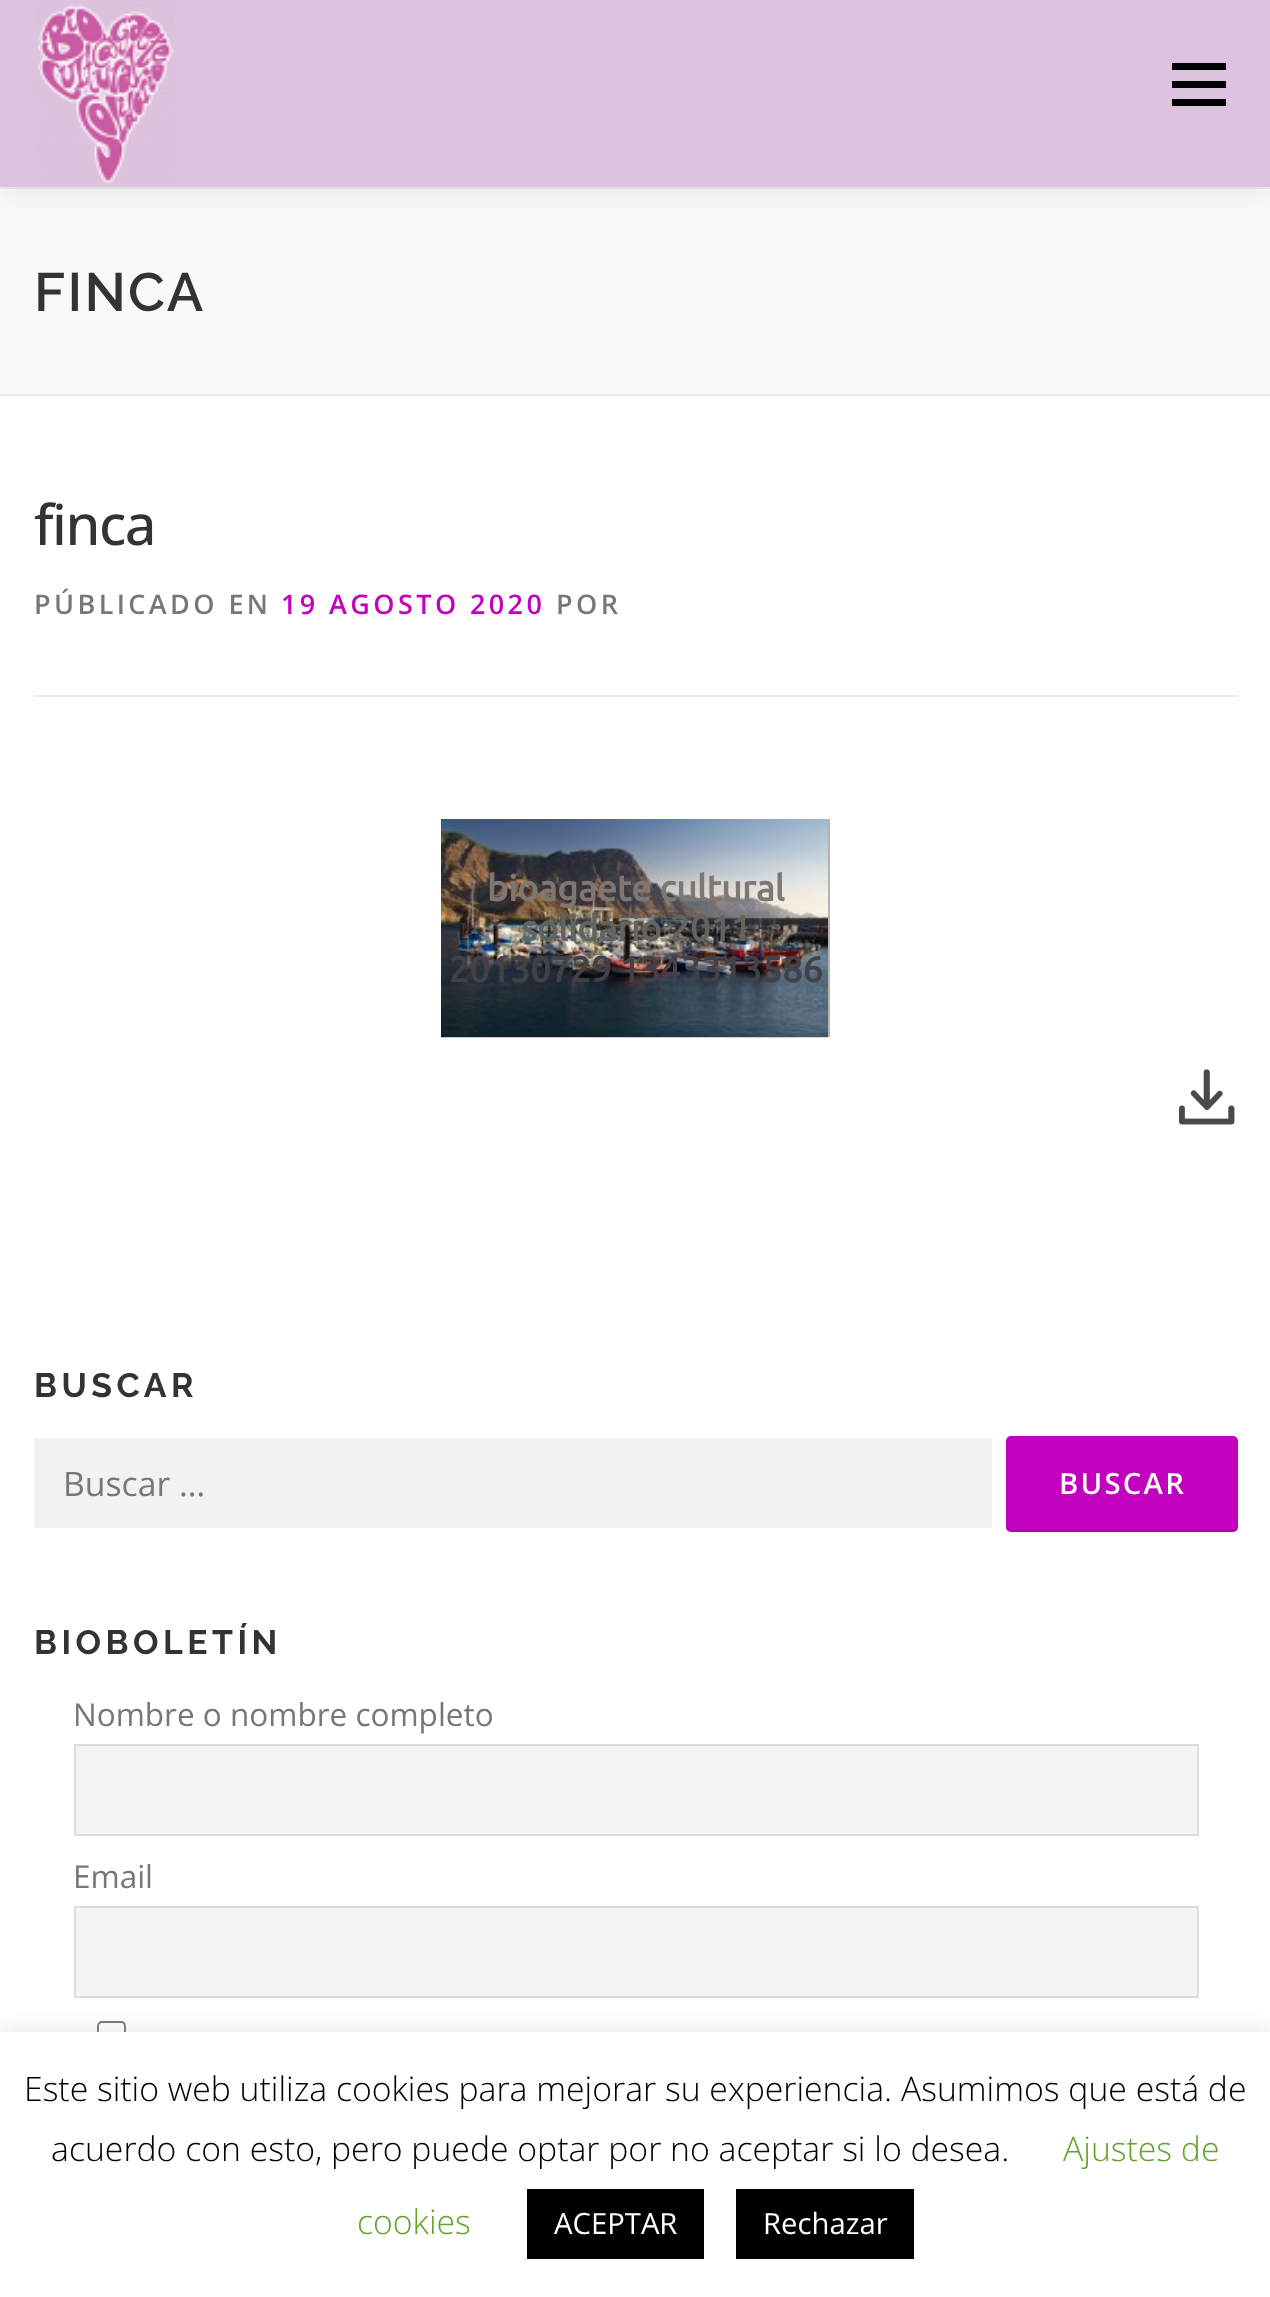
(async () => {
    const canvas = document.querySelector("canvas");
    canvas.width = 1270;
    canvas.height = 2297;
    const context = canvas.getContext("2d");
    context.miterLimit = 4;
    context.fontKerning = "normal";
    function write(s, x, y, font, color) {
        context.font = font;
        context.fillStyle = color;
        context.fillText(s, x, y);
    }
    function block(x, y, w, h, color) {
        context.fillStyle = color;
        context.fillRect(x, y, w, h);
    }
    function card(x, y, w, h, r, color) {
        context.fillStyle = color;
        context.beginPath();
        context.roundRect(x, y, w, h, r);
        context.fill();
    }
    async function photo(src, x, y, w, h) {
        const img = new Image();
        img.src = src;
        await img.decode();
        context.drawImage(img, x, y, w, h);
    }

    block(0, 0, 1270, 2297, "rgb(255, 255, 255)");
    block(0, 189, 1270, 205, "rgb(248, 249, 249)");
    block(0, 187, 1270, 2, "rgb(233, 233, 233)");
    context.fillStyle = "rgba(50, 50, 50, 0.06)";
    context.filter = "blur(11px)";
    context.beginPath();
    context.rect(0, 11, 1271, 187);
    context.fill();
    context.filter = "none";
    block(0, 0, 1270, 187, "rgb(221, 195, 221)");
    await photo("media/1.png", 37, 4, 137, 181);
    block(1172, 81, 54, 7, "rgb(0, 0, 0)");
    block(1172, 63, 54, 7, "rgb(0, 0, 0)");
    block(1172, 99, 54, 7, "rgb(0, 0, 0)");
    block(0, 394, 1270, 2, "rgb(233, 233, 233)");
    context.letterSpacing = "2.25px";
    write("FINCA", 34, 311, "600 54px Raleway", "rgb(51, 51, 51)");
    context.letterSpacing = "-1.5px";
    write("finca", 34, 545, "500 56px Open Sans", "rgb(51, 51, 51)");
    block(34, 695, 1204, 2, "rgb(233, 233, 233)");
    context.letterSpacing = "3.4px";
    write("PÚBLICADO EN", 34, 614, "600 27px Open Sans", "rgb(119, 119, 119)");
    write("19 AGOSTO 2020", 281, 614, "600 27px Open Sans", "rgb(193, 1, 190)");
    write("POR", 556, 614, "600 27px Open Sans", "rgb(119, 119, 119)");
    block(828, 819, 2, 218, "rgb(179, 179, 179)");
    await photo("media/2.png", 441, 819, 387, 219);
    context.letterSpacing = "0px";
    write("bioagaete cultural", 487, 901, "bold 36px Ubuntu", "rgb(126, 119, 115)");
    write("solidario 2011", 521, 941, "bold 36px Ubuntu", "rgb(99, 99, 96)");
    write("20130729 1343313586", 449, 982, "bold 36px Ubuntu", "rgb(67, 65, 72)");
    await photo("media/3.png", 1179, 1069, 56, 56);
    context.letterSpacing = "4.5px";
    write("BUSCAR", 34, 1397, "bold 33.75px Raleway", "rgb(51, 51, 51)");
    block(34, 1438, 958, 90, "rgb(242, 242, 242)");
    context.letterSpacing = "0px";
    write("Buscar …", 63, 1496, "33.75px Open Sans", "rgb(119, 119, 119)");
    card(1006, 1436, 232, 96, 5, "rgb(193, 1, 190)");
    context.fillStyle = "rgba(0, 0, 0, 0.1)";
    context.beginPath();
    context.moveTo(1006, 1526);
    context.lineTo(1006, 1527);
    context.bezierCurveTo(1006, 1530, 1008, 1532, 1011, 1532);
    context.lineTo(1233, 1532);
    context.bezierCurveTo(1236, 1532, 1238, 1530, 1238, 1527);
    context.lineTo(1238, 1526);
    context.bezierCurveTo(1238, 1528, 1235, 1530, 1233, 1530);
    context.lineTo(1010, 1530);
    context.bezierCurveTo(1008, 1530, 1006, 1528, 1006, 1526);
    context.closePath();
    context.fill();
    context.letterSpacing = "2.25px";
    write("BUSCAR", 1059, 1494, "600 29.25px Open Sans", "rgb(255, 255, 255)");
    context.letterSpacing = "4.5px";
    write("BIOBOLETÍN", 34, 1654, "bold 33.75px Raleway", "rgb(51, 51, 51)");
    context.letterSpacing = "0px";
    write("Nombre o nombre completo", 73, 1726, "31.5px Open Sans", "rgb(119, 119, 119)");
    context.fillStyle = "rgb(244, 244, 244)";
    context.beginPath();
    context.rect(75, 1745, 1123, 90);
    context.fill();
    context.strokeStyle = "rgb(221, 221, 221)";
    context.lineWidth = 2;
    context.stroke();
    write("Email", 73, 1888, "31.5px Open Sans", "rgb(119, 119, 119)");
    context.fillStyle = "rgb(244, 244, 244)";
    context.beginPath();
    context.rect(75, 1907, 1123, 90);
    context.fill();
    context.stroke();
    context.beginPath();
    context.roundRect(98, 2022, 27, 27, 4);
    context.strokeStyle = "rgb(118, 118, 118)";
    context.stroke();
    context.fillStyle = "rgba(172, 171, 171, 0.3)";
    context.filter = "blur(11px)";
    context.beginPath();
    context.rect(0, 2030, 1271, 265);
    context.fill();
    context.filter = "none";
    block(0, 2032, 1270, 265, "rgb(255, 255, 255)");
    write("Este sitio web utiliza cookies para mejorar su experiencia. Asumimos que está de", 24, 2101, "300 33.75px Open Sans", "rgb(0, 0, 0)");
    write("acuerdo con esto, pero puede optar por no aceptar si lo desea.", 51, 2161, "300 33.75px Open Sans", "rgb(0, 0, 0)");
    write("Ajustes de", 1063, 2161, "300 33.75px Open Sans", "rgb(98, 163, 41)");
    write("cookies", 357, 2234, "300 33.75px Open Sans", "rgb(98, 163, 41)");
    block(527, 2189, 177, 70, "rgb(0, 0, 0)");
    write("ACEPTAR", 554, 2234, "29.25px Open Sans", "rgb(255, 255, 255)");
    block(736, 2189, 178, 70, "rgb(0, 0, 0)");
    write("Rechazar", 763, 2234, "29.25px Open Sans", "rgb(255, 255, 255)");
})();
